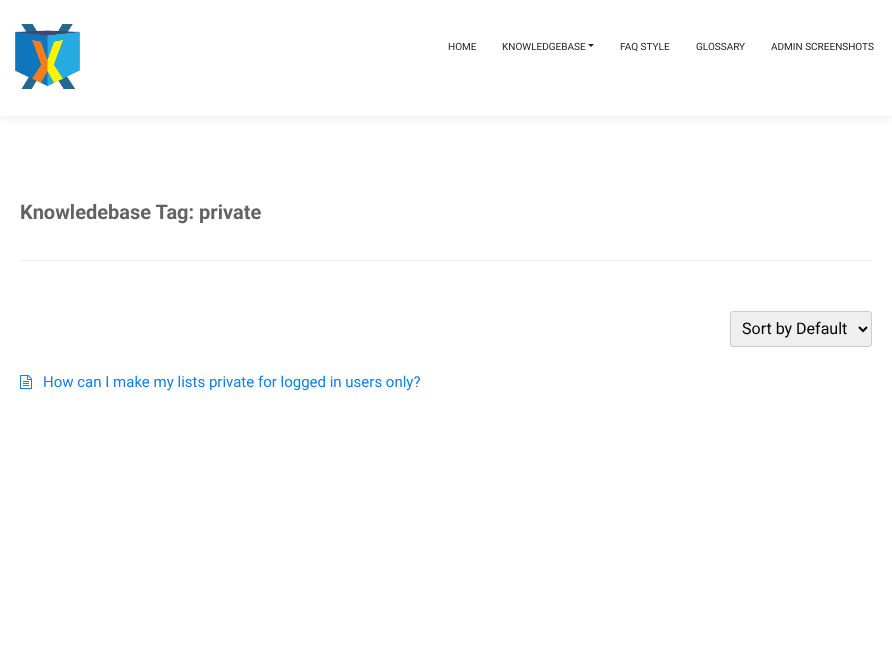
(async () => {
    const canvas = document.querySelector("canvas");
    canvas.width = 892;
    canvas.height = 645;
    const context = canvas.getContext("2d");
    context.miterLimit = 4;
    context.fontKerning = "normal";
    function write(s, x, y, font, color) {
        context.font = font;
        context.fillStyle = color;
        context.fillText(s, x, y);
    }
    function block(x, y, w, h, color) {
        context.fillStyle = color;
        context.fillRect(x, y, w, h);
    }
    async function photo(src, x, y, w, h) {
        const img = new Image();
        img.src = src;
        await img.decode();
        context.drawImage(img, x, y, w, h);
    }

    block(0, 0, 892, 645, "rgb(255, 255, 255)");
    context.save();
    context.beginPath();
    context.rect(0, 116, 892, 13);
    context.clip();
    context.fillStyle = "rgb(233, 233, 233)";
    context.filter = "blur(6px)";
    context.beginPath();
    context.rect(-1, -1, 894, 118);
    context.fill();
    context.filter = "none";
    context.restore();
    await photo("media/1.png", 15, 24, 65, 65);
    write("HOME", 448, 50, "10px Roboto", "rgb(34, 34, 34)");
    write("KNOWLEDGEBASE", 502, 50, "10px Roboto", "rgb(34, 34, 34)");
    context.beginPath();
    context.moveTo(588, 44);
    context.lineTo(594, 44);
    context.lineTo(591, 47);
    context.closePath();
    context.fill();
    write("FAQ STYLE", 620, 50, "10px Roboto", "rgb(34, 34, 34)");
    write("GLOSSARY", 696, 50, "10px Roboto", "rgb(34, 34, 34)");
    write("ADMIN SCREENSHOTS", 771, 50, "10px Roboto", "rgb(34, 34, 34)");
    block(20, 260, 852, 1, "rgb(237, 237, 237)");
    write("Knowledebase Tag: private", 20, 219, "bold 20px Roboto", "rgb(99, 99, 99)");
    context.fillStyle = "rgb(239, 239, 239)";
    context.beginPath();
    context.roundRect(730.5, 311.5, 141, 35, 2.5);
    context.fill();
    context.strokeStyle = "rgb(204, 204, 204)";
    context.stroke();
    context.beginPath();
    context.moveTo(859, 327);
    context.lineTo(863, 331);
    context.lineTo(867, 327);
    context.strokeStyle = "rgb(0, 0, 0)";
    context.lineWidth = 2;
    context.stroke();
    write("Sort by Default", 742, 334, "16px Roboto", "rgb(0, 0, 0)");
    await photo("media/2.png", 20, 375, 12, 14);
    write("How can I make my lists private for logged in users only?", 43, 387, "15px Roboto", "rgb(16, 126, 236)");
})();
